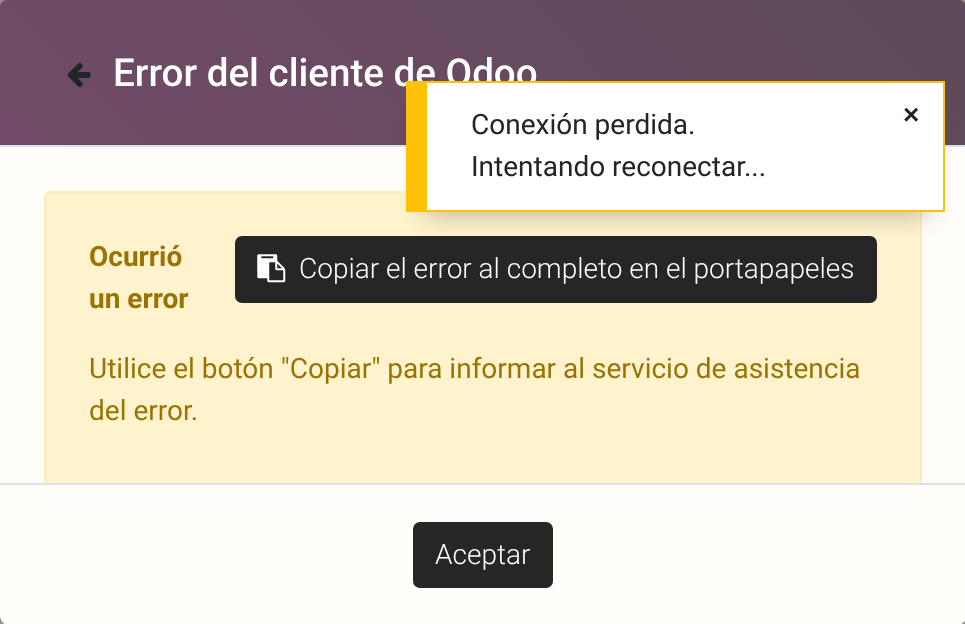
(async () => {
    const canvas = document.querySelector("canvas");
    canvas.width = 965;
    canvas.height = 624;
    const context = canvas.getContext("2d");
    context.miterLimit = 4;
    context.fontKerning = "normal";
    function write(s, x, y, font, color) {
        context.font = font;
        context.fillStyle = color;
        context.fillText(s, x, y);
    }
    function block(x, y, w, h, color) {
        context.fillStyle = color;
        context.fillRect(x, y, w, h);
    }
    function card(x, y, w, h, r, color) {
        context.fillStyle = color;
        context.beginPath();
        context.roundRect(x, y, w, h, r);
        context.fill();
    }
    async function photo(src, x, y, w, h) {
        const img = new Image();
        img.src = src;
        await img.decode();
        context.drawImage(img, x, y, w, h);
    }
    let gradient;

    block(0, 0, 965, 624, "rgb(147, 146, 144)");
    card(0, 0, 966, 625, 9, "rgb(255, 253, 249)");
    gradient = context.createLinearGradient(205, 350, 761, -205);
    gradient.addColorStop(0, "rgb(113, 75, 103)");
    gradient.addColorStop(1, "rgb(94, 74, 89)");
    context.fillStyle = gradient;
    context.beginPath();
    context.moveTo(7, 0);
    context.lineTo(959, 0);
    context.bezierCurveTo(963, 0, 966, 3, 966, 7);
    context.lineTo(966, 145);
    context.lineTo(0, 145);
    context.lineTo(0, 7);
    context.bezierCurveTo(0, 3, 3, 0, 7, 0);
    context.closePath();
    context.fill();
    block(0, 145, 965, 2, "rgb(222, 226, 230)");
    await photo("media/1.png", 67, 62, 24, 26);
    write("Error del cliente de Odoo", 113, 86, "500 38.6px Roboto", "rgb(255, 255, 255)");
    context.fillStyle = "rgb(255, 243, 205)";
    context.beginPath();
    context.roundRect(44, 191, 878, 292, [7, 7, 0, 0]);
    context.fill();
    block(0, 483, 965, 2, "rgb(222, 226, 230)");
    context.save();
    context.beginPath();
    context.rect(0, 147, 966, 336);
    context.clip();
    context.beginPath();
    context.roundRect(45, 192, 876, 313, 6);
    context.strokeStyle = "rgb(255, 236, 181)";
    context.lineWidth = 2;
    context.stroke();
    context.restore();
    write("Ocurrió", 89, 266, "bold 28px Roboto", "rgb(153, 116, 4)");
    write("un error", 89, 308, "bold 28px Roboto", "rgb(153, 116, 4)");
    context.fillStyle = "rgb(38, 38, 38)";
    context.beginPath();
    context.roundRect(236, 237, 640, 65, 6);
    context.fill();
    context.strokeStyle = "rgb(38, 38, 38)";
    context.lineWidth = 2;
    context.stroke();
    await photo("media/2.png", 257, 254, 29, 29);
    write("Copiar el error al completo en el portapapeles", 299, 278, "300 28px Roboto", "rgb(255, 255, 255)");
    write("Utilice el botón \"Copiar\" para informar al servicio de asistencia", 89, 378, "28px Roboto", "rgb(153, 116, 4)");
    write("del error.", 89, 420, "28px Roboto", "rgb(153, 116, 4)");
    context.fillStyle = "rgb(38, 38, 38)";
    context.beginPath();
    context.roundRect(414, 523, 138, 64, 6);
    context.fill();
    context.stroke();
    write("Aceptar", 435, 564, "300 28px Roboto", "rgb(255, 255, 255)");
    context.fillStyle = "rgba(0, 0, 0, 0.25)";
    context.filter = "blur(12px)";
    context.beginPath();
    context.rect(424, 119, 504, 96);
    context.fill();
    context.filter = "none";
    block(427, 83, 516, 127, "rgb(255, 255, 255)");
    block(427, 81, 518, 2, "rgb(255, 193, 7)");
    block(943, 81, 2, 131, "rgb(255, 193, 7)");
    block(427, 210, 518, 2, "rgb(255, 193, 7)");
    block(406, 81, 21, 131, "rgb(255, 193, 7)");
    write("Conexión perdida.", 471, 134, "28px Roboto", "rgb(33, 37, 41)");
    write("Intentando reconectar...", 471, 176, "28px Roboto", "rgb(33, 37, 41)");
    write("×", 903, 124, "bold 28px Liberation Sans", "rgb(33, 37, 41)");
})();
